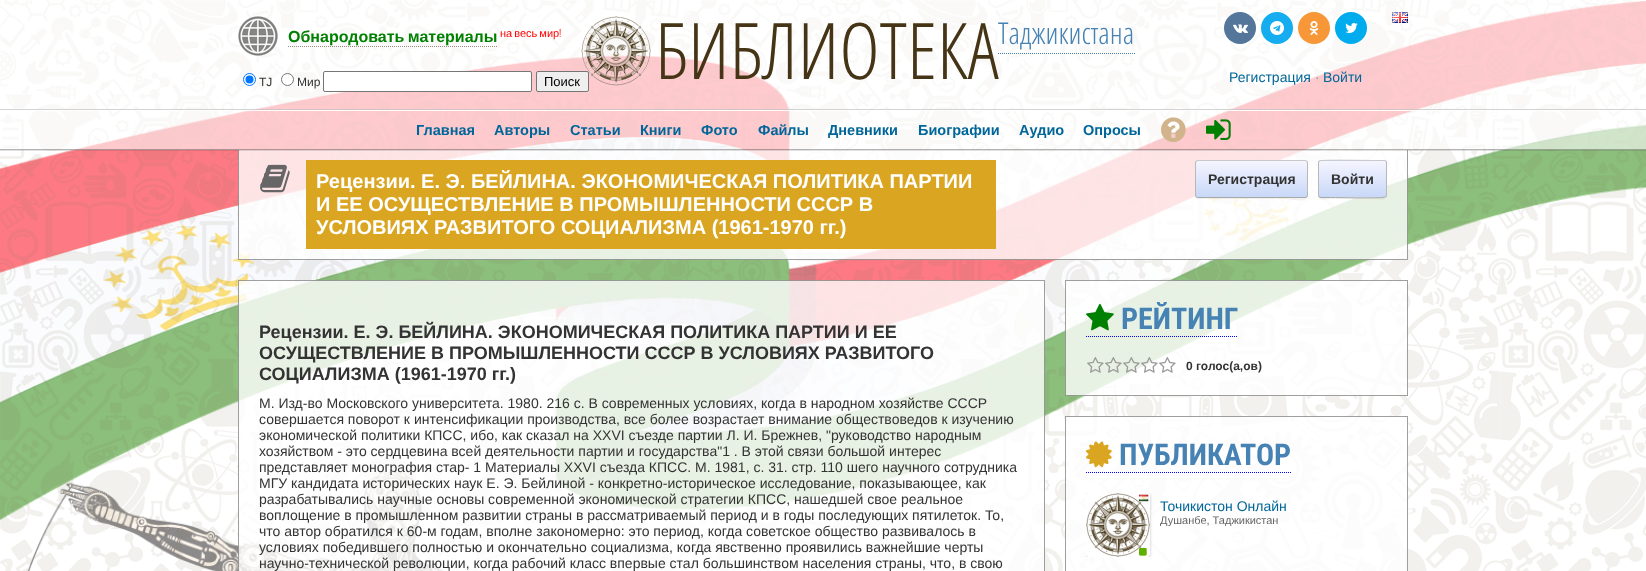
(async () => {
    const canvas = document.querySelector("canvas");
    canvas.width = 1646;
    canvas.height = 571;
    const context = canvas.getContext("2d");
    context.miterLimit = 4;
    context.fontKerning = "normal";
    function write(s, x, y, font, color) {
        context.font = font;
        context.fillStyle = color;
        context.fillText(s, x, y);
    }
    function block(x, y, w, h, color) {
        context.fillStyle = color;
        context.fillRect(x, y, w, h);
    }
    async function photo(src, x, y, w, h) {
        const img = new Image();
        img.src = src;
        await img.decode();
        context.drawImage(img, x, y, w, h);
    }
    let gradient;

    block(0, 0, 1646, 571, "rgb(255, 255, 255)");
    await photo("media/1.png", 0, 1, 1646, 570);
    await photo("media/2.png", 0, 0, 1646, 571);
    block(238, 150, 1170, 110, "rgba(255, 255, 255, 0.8)");
    context.fillStyle = "rgba(64, 64, 64, 0.5)";
    context.beginPath();
    context.moveTo(1408, 150);
    context.lineTo(1408, 260);
    context.lineTo(1407, 259);
    context.lineTo(1407, 150);
    context.closePath();
    context.fill();
    context.beginPath();
    context.moveTo(1408, 260);
    context.lineTo(238, 260);
    context.lineTo(239, 259);
    context.lineTo(1407, 259);
    context.closePath();
    context.fill();
    context.beginPath();
    context.moveTo(238, 260);
    context.lineTo(238, 150);
    context.lineTo(239, 150);
    context.lineTo(239, 259);
    context.closePath();
    context.fill();
    context.save();
    context.beginPath();
    context.rect(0, 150, 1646, 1);
    context.clip();
    context.fillStyle = "rgba(51, 51, 51, 0.15)";
    context.filter = "blur(0.5px)";
    context.beginPath();
    context.rect(0, 111, 1646, 40);
    context.fill();
    context.filter = "none";
    context.restore();
    block(0, 0, 1646, 110, "rgba(255, 255, 255, 0.6)");
    block(0, 109, 1646, 1, "rgba(192, 192, 192, 0.7)");
    context.fillStyle = "rgb(255, 255, 255)";
    context.beginPath();
    context.arc(249.5, 79.5, 6, 0, Math.PI * 2);
    context.fill();
    context.strokeStyle = "rgb(0, 117, 255)";
    context.stroke();
    context.fillStyle = "rgb(0, 117, 255)";
    context.beginPath();
    context.arc(249.5, 79.5, 4, 0, Math.PI * 2);
    context.fill();
    write("TJ", 259, 86, "12px Liberation Sans", "rgb(51, 51, 51)");
    context.fillStyle = "rgb(255, 255, 255)";
    context.beginPath();
    context.arc(287.5, 79.5, 6, 0, Math.PI * 2);
    context.fill();
    context.strokeStyle = "rgb(118, 118, 118)";
    context.stroke();
    write("Мир", 297, 86, "12px Liberation Sans", "rgb(51, 51, 51)");
    context.fillStyle = "rgb(255, 255, 255)";
    context.beginPath();
    context.roundRect(323.5, 71.5, 208, 20, 1.5);
    context.fill();
    context.stroke();
    await photo("media/3.png", 581, 16, 70, 70);
    context.fillStyle = "rgb(239, 239, 239)";
    context.beginPath();
    context.roundRect(536.5, 71.5, 52, 20, 1.5);
    context.fill();
    context.stroke();
    write("Поиск", 544, 86, "13px Liberation Sans", "rgb(0, 0, 0)");
    write("БИБЛИОТЕКА", 655, 79, "300 78px Open Sans Condensed", "rgb(69, 52, 22)");
    write("Таджикистана", 998, 44, "300 30px Open Sans Condensed", "rgb(70, 130, 180)");
    context.beginPath();
    context.moveTo(998, 53.5);
    context.lineTo(1135, 53.5);
    context.strokeStyle = "rgb(70, 130, 180)";
    context.setLineDash([1, 1]);
    context.stroke();
    context.fillStyle = "rgb(84, 118, 154)";
    context.beginPath();
    context.arc(1240, 28, 16, 0, Math.PI * 2);
    context.fill();
    await photo("media/4.png", 1233, 24, 15, 9);
    context.fillStyle = "rgb(21, 173, 240)";
    context.beginPath();
    context.arc(1277, 28, 16, 0, Math.PI * 2);
    context.fill();
    await photo("media/5.png", 1270, 21, 14, 14);
    context.fillStyle = "rgb(247, 151, 56)";
    context.beginPath();
    context.arc(1314, 28, 16, 0, Math.PI * 2);
    context.fill();
    await photo("media/6.png", 1309, 21, 10, 14);
    context.fillStyle = "rgb(0, 172, 238)";
    context.beginPath();
    context.arc(1351, 28, 16, 0, Math.PI * 2);
    context.fill();
    await photo("media/7.png", 1345, 23, 13, 10);
    await photo("media/8.png", 1392, 12, 16, 11);
    write("Регистрация", 1229, 82, "14px Liberation Sans", "rgb(0, 102, 153)");
    write("·", 1315, 82, "14px Liberation Sans", "rgb(153, 153, 153)");
    write("Войти", 1323, 82, "14px Liberation Sans", "rgb(0, 102, 153)");
    await photo("media/9.png", 238, 16, 40, 40);
    context.wordSpacing = "-1px";
    write("Обнародовать материалы", 288, 42, "bold 16px Liberation Sans", "rgb(0, 128, 0)");
    context.beginPath();
    context.moveTo(288, 46.5);
    context.lineTo(497, 46.5);
    context.strokeStyle = "rgb(152, 137, 137)";
    context.stroke();
    write("на весь мир", 500, 37, "11px Liberation Sans", "rgb(255, 0, 0)");
    context.wordSpacing = "0px";
    write("!", 559, 37, "11px Dosis", "rgb(255, 0, 0)");
    block(0, 110, 1646, 40, "rgba(255, 255, 255, 0.6)");
    block(35, 110, 1611, 1, "rgba(255, 255, 255, 0.9)");
    block(0, 149, 1646, 1, "rgba(64, 64, 64, 0.4)");
    write("Главная", 416, 135, "bold 14.5px Liberation Sans", "rgb(0, 102, 153)");
    write("Авторы", 494, 135, "bold 14.5px Liberation Sans", "rgb(0, 102, 153)");
    write("Статьи", 570, 135, "bold 14.5px Liberation Sans", "rgb(0, 102, 153)");
    write("Книги", 640, 135, "bold 14.5px Liberation Sans", "rgb(0, 102, 153)");
    write("Фото", 701, 135, "bold 14.5px Liberation Sans", "rgb(0, 102, 153)");
    write("Файлы", 758, 135, "bold 14.5px Liberation Sans", "rgb(0, 102, 153)");
    write("Дневники", 828, 135, "bold 14.5px Liberation Sans", "rgb(0, 102, 153)");
    write("Биографии", 918, 135, "bold 14.5px Liberation Sans", "rgb(0, 102, 153)");
    write("Аудио", 1019, 135, "bold 14.5px Liberation Sans", "rgb(0, 102, 153)");
    write("Опросы", 1083, 135, "bold 14.5px Liberation Sans", "rgb(0, 102, 153)");
    await photo("media/10.png", 1161, 117, 25, 25);
    await photo("media/11.png", 1206, 119, 25, 21);
    await photo("media/12.png", 260, 164, 30, 29);
    block(306, 160, 690, 89, "rgb(218, 165, 32)");
    write("Рецензии. Е. Э. БЕЙЛИНА. ЭКОНОМИЧЕСКАЯ ПОЛИТИКА ПАРТИИ", 316, 188, "bold 20px Liberation Sans", "rgb(255, 255, 255)");
    write("И ЕЕ ОСУЩЕСТВЛЕНИЕ В ПРОМЫШЛЕННОСТИ СССР В", 316, 211, "bold 20px Liberation Sans", "rgb(255, 255, 255)");
    write("УСЛОВИЯХ РАЗВИТОГО СОЦИАЛИЗМА (1961-1970 гг.)", 316, 234, "bold 20px Liberation Sans", "rgb(255, 255, 255)");
    context.fillStyle = "rgba(128, 128, 128, 0.1)";
    context.beginPath();
    context.moveTo(1195, 195);
    context.bezierCurveTo(1195, 197, 1196, 199, 1198, 199);
    context.lineTo(1287, 199);
    context.bezierCurveTo(1289, 199, 1308, 204, 1308, 195);
    context.lineTo(1307, 197);
    context.lineTo(1305, 198);
    context.lineTo(1198, 198);
    context.bezierCurveTo(1196, 198, 1195, 197, 1195, 195);
    context.closePath();
    context.fill();
    context.save();
    context.beginPath();
    context.roundRect(1195, 160, 113, 38, 3);
    context.clip();
    gradient = context.createLinearGradient(1252, 161, 1252, 197);
    gradient.addColorStop(0, "rgb(245, 245, 255)");
    gradient.addColorStop(1, "rgb(200, 216, 248)");
    context.fillStyle = gradient;
    context.fillRect(1195, 161, 113, 36);
    context.restore();
    context.beginPath();
    context.moveTo(1196, 161);
    context.lineTo(1198, 160.5);
    context.lineTo(1305, 160.5);
    context.lineTo(1307, 161);
    context.strokeStyle = "rgb(200, 200, 200)";
    context.setLineDash([]);
    context.stroke();
    context.beginPath();
    context.moveTo(1307, 161);
    context.bezierCurveTo(1307, 161.5, 1307.5, 162.5, 1307.5, 163);
    context.lineTo(1307.5, 195);
    context.bezierCurveTo(1307.5, 195.5, 1307, 196.5, 1307, 197);
    context.strokeStyle = "rgb(184, 184, 184)";
    context.stroke();
    context.beginPath();
    context.moveTo(1307, 197);
    context.lineTo(1305, 197.5);
    context.lineTo(1198, 197.5);
    context.lineTo(1196, 197);
    context.strokeStyle = "rgb(168, 168, 168)";
    context.stroke();
    context.beginPath();
    context.moveTo(1196, 197);
    context.bezierCurveTo(1196, 196.5, 1195.5, 195.5, 1195.5, 195);
    context.lineTo(1195.5, 163);
    context.bezierCurveTo(1195.5, 162.5, 1196, 161.5, 1196, 161);
    context.strokeStyle = "rgb(184, 184, 184)";
    context.stroke();
    write("Регистрация", 1208, 184, "bold 14px Liberation Sans", "rgb(51, 51, 51)");
    context.fillStyle = "rgba(128, 128, 128, 0.1)";
    context.beginPath();
    context.moveTo(1318, 195);
    context.bezierCurveTo(1318, 202, 1327, 199, 1332, 199);
    context.lineTo(1374, 199);
    context.bezierCurveTo(1378, 199, 1387, 202, 1387, 195);
    context.bezierCurveTo(1387, 197, 1386, 198, 1384, 198);
    context.lineTo(1321, 198);
    context.bezierCurveTo(1319, 198, 1318, 197, 1318, 195);
    context.closePath();
    context.fill();
    context.save();
    context.beginPath();
    context.roundRect(1318, 160, 69, 38, 3);
    context.clip();
    gradient = context.createLinearGradient(1353, 125, 1353, 161);
    gradient.addColorStop(0, "rgb(245, 245, 255)");
    gradient.addColorStop(1, "rgb(200, 216, 248)");
    context.fillStyle = gradient;
    context.fillRect(1318, 160, 69, 1);
    gradient = context.createLinearGradient(1353, 161, 1353, 197);
    gradient.addColorStop(0, "rgb(245, 245, 255)");
    gradient.addColorStop(1, "rgb(200, 216, 248)");
    context.fillStyle = gradient;
    context.fillRect(1318, 161, 69, 36);
    gradient = context.createLinearGradient(1353, 197, 1353, 233);
    gradient.addColorStop(0, "rgb(245, 245, 255)");
    gradient.addColorStop(1, "rgb(200, 216, 248)");
    context.fillStyle = gradient;
    context.fillRect(1318, 197, 69, 1);
    context.restore();
    context.beginPath();
    context.moveTo(1319, 161);
    context.lineTo(1319.5, 161);
    context.bezierCurveTo(1321.5, 159.5, 1367.5, 160.5, 1373.5, 160.5);
    context.lineTo(1384, 160.5);
    context.lineTo(1386, 161);
    context.strokeStyle = "rgb(200, 200, 200)";
    context.stroke();
    context.beginPath();
    context.moveTo(1386, 161);
    context.bezierCurveTo(1386, 161.5, 1386.5, 162.5, 1386.5, 163);
    context.lineTo(1386.5, 195);
    context.bezierCurveTo(1386.5, 195.5, 1386, 196.5, 1386, 197);
    context.strokeStyle = "rgb(184, 184, 184)";
    context.stroke();
    context.beginPath();
    context.moveTo(1386, 197);
    context.lineTo(1385.5, 197);
    context.bezierCurveTo(1383.5, 198.5, 1337.5, 197.5, 1331.5, 197.5);
    context.lineTo(1321, 197.5);
    context.lineTo(1319, 197);
    context.strokeStyle = "rgb(168, 168, 168)";
    context.stroke();
    context.beginPath();
    context.moveTo(1319, 197);
    context.bezierCurveTo(1319, 196.5, 1318.5, 195.5, 1318.5, 195);
    context.lineTo(1318.5, 163);
    context.bezierCurveTo(1318.5, 162.5, 1319, 161.5, 1319, 161);
    context.strokeStyle = "rgb(184, 184, 184)";
    context.stroke();
    write("Войти", 1331, 184, "bold 14px Liberation Sans", "rgb(51, 51, 51)");
    block(238, 280, 807, 291, "rgba(255, 255, 255, 0.8)");
    context.strokeStyle = "rgba(64, 64, 64, 0.5)";
    context.strokeRect(238.5, 280.5, 806, 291);
    write("Рецензии. Е. Э. БЕЙЛИНА. ЭКОНОМИЧЕСКАЯ ПОЛИТИКА ПАРТИИ И ЕЕ", 259, 338, "bold 18px Liberation Sans", "rgb(51, 51, 51)");
    write("ОСУЩЕСТВЛЕНИЕ В ПРОМЫШЛЕННОСТИ СССР В УСЛОВИЯХ РАЗВИТОГО", 259, 359, "bold 18px Liberation Sans", "rgb(51, 51, 51)");
    write("СОЦИАЛИЗМА (1961-1970 гг.)", 259, 380, "bold 18px Liberation Sans", "rgb(51, 51, 51)");
    write("М. Изд-во Московского университета. 1980. 216 с. В современных условиях, когда в народном хозяйстве СССР", 259, 408, "14px Liberation Sans", "rgb(51, 51, 51)");
    write("совершается поворот к интенсификации производства, все более возрастает внимание обществоведов к изучению", 259, 424, "14px Liberation Sans", "rgb(51, 51, 51)");
    write("экономической политики КПСС, ибо, как сказал на XXVI съезде партии Л. И. Брежнев, \"руководство народным", 259, 440, "14px Liberation Sans", "rgb(51, 51, 51)");
    write("хозяйством - это сердцевина всей деятельности партии и государства\"1 . В этой связи большой интерес", 259, 456, "14px Liberation Sans", "rgb(51, 51, 51)");
    write("представляет монография стар- 1 Материалы XXVI съезда КПСС. М. 1981, с. 31. стр. 110 шего научного сотрудника", 259, 472, "14px Liberation Sans", "rgb(51, 51, 51)");
    write("МГУ кандидата исторических наук Е. Э. Бейлиной - конкретно-историческое исследование, показывающее, как", 259, 488, "14px Liberation Sans", "rgb(51, 51, 51)");
    write("разрабатывались научные основы современной экономической стратегии КПСС, нашедшей свое реальное", 259, 504, "14px Liberation Sans", "rgb(51, 51, 51)");
    write("воплощение в промышленном развитии страны в рассматриваемый период и в годы последующих пятилеток. То,", 259, 520, "14px Liberation Sans", "rgb(51, 51, 51)");
    write("что автор обратился к 60-м годам, вполне закономерно: это период, когда советское общество развивалось в", 259, 536, "14px Liberation Sans", "rgb(51, 51, 51)");
    write("условиях победившего полностью и окончательно социализма, когда явственно проявились важнейшие черты", 259, 552, "14px Liberation Sans", "rgb(51, 51, 51)");
    write("научно-технической революции, когда рабочий класс впервые стал большинством населения страны, что, в свою", 259, 568, "14px Liberation Sans", "rgb(51, 51, 51)");
    block(1065, 280, 343, 116, "rgba(255, 255, 255, 0.8)");
    context.strokeRect(1065.5, 280.5, 342, 115);
    context.beginPath();
    context.moveTo(1086, 336.5);
    context.lineTo(1238, 336.5);
    context.strokeStyle = "rgb(0, 0, 255)";
    context.setLineDash([1, 1]);
    context.stroke();
    await photo("media/13.png", 1086, 303, 28, 28);
    write("РЕЙТИНГ", 1121, 329, "bold 30px Roboto Condensed", "rgb(70, 130, 180)");
    await photo("media/14.png", 1087, 357, 17, 16);
    await photo("media/15.png", 1105, 357, 17, 16);
    await photo("media/16.png", 1123, 357, 17, 16);
    await photo("media/17.png", 1141, 357, 17, 16);
    await photo("media/18.png", 1159, 357, 17, 16);
    write("0 голос(а,ов)", 1186, 370, "bold 12px Liberation Sans", "rgb(51, 51, 51)");
    block(1065, 416, 343, 155, "rgba(255, 255, 255, 0.8)");
    context.strokeStyle = "rgba(64, 64, 64, 0.5)";
    context.setLineDash([]);
    context.strokeRect(1065.5, 416.5, 342, 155);
    context.beginPath();
    context.moveTo(1086, 472.5);
    context.lineTo(1291, 472.5);
    context.strokeStyle = "rgb(0, 0, 255)";
    context.setLineDash([1, 1]);
    context.stroke();
    await photo("media/19.png", 1086, 441, 26, 27);
    write("ПУБЛИКАТОР", 1119, 465, "bold 30px Roboto Condensed", "rgb(70, 130, 180)");
    context.save();
    context.beginPath();
    context.rect(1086, 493, 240, 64);
    context.clip();
    context.fillStyle = "rgba(51, 51, 51, 0.3)";
    context.filter = "blur(1.5px)";
    context.beginPath();
    context.roundRect(1086, 494, 64, 64, 3);
    context.fill();
    context.filter = "none";
    context.restore();
    await photo("media/20.png", 1086, 493, 64, 64);
    await photo("media/21.png", 1139, 547, 8, 9);
    write("Точикистон Онлайн", 1160, 511, "14px Liberation Sans", "rgb(0, 102, 153)");
    context.save();
    context.beginPath();
    context.rect(1150, 493, 176, 33);
    context.clip();
    write("Душанбе, Таджикистан", 1160, 524, "11px Liberation Sans", "rgb(102, 102, 102)");
    context.restore();
})();
